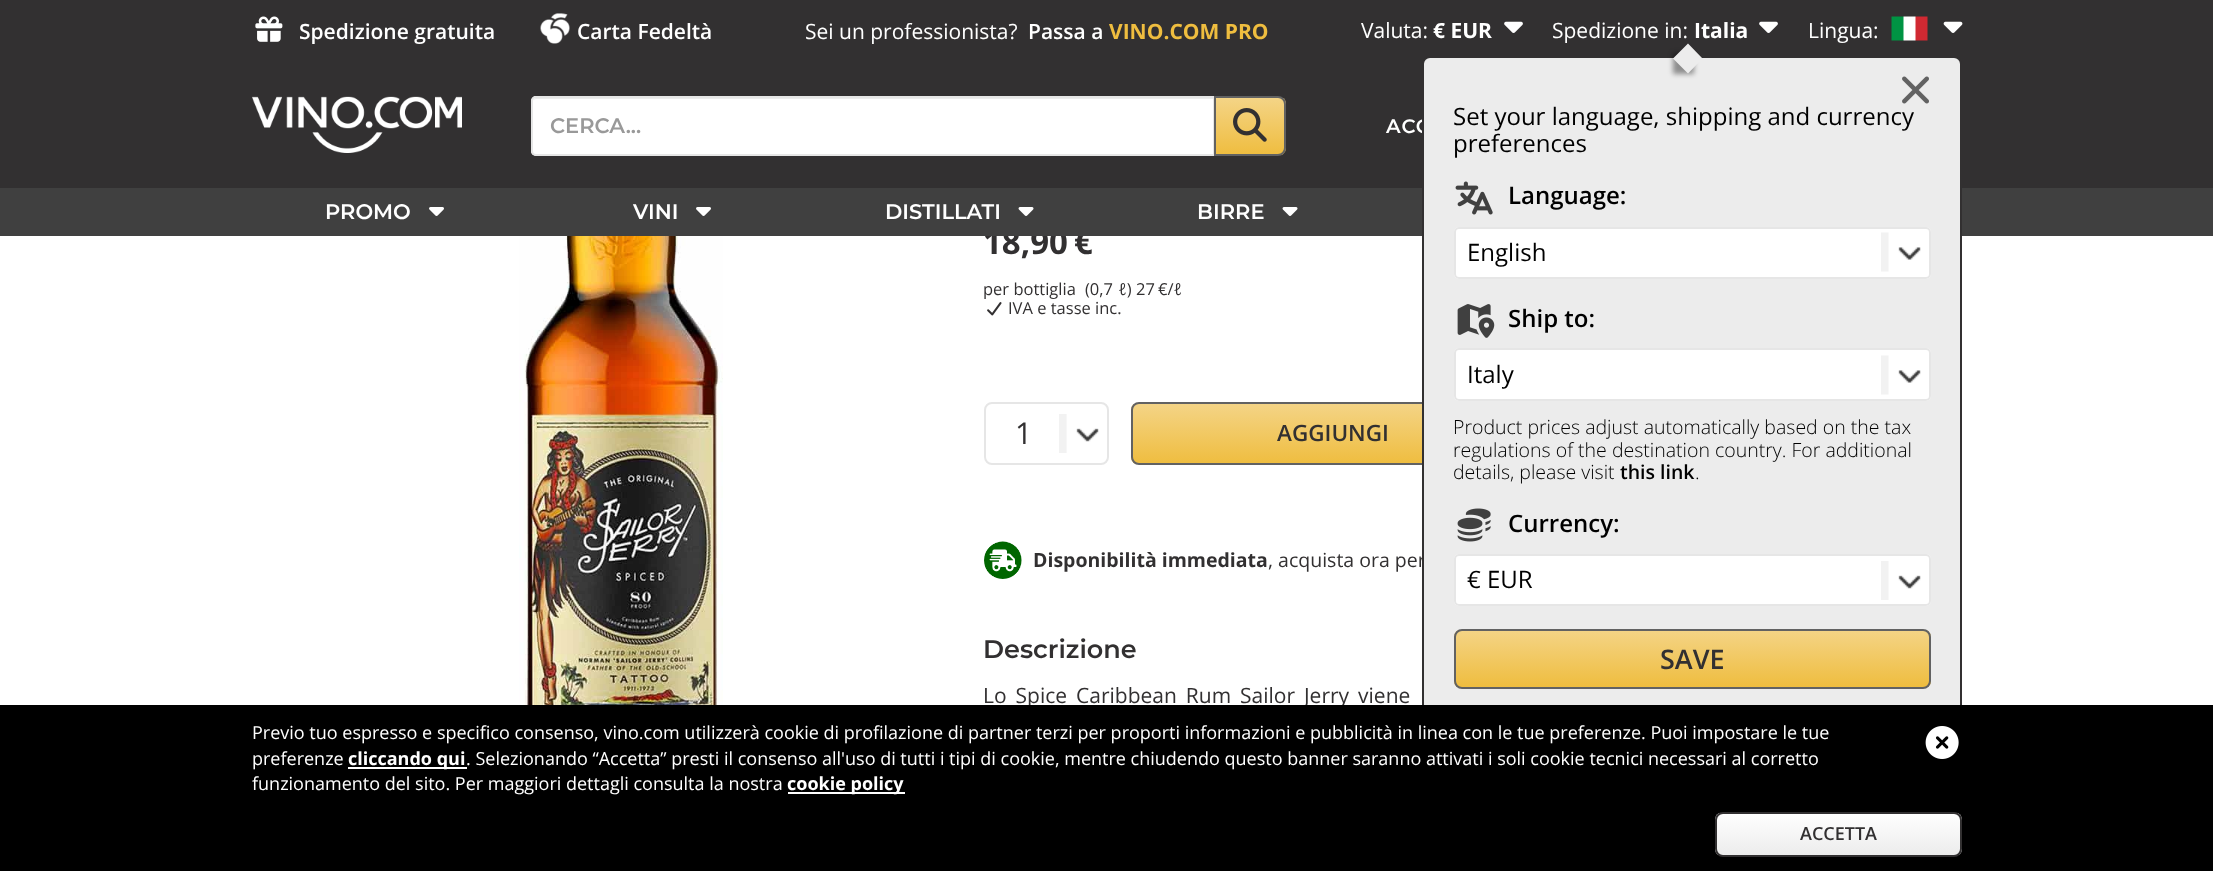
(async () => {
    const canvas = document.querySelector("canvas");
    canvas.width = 2213;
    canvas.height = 871;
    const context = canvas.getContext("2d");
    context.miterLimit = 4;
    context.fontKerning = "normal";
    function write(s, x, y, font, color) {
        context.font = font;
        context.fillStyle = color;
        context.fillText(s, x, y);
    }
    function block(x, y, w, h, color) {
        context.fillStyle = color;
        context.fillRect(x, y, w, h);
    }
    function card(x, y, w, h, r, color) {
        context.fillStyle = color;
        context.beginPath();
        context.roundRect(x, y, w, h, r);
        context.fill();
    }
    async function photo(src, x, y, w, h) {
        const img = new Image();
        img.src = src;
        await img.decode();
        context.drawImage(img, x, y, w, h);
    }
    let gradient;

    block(0, 0, 2213, 871, "rgb(255, 255, 255)");
    block(0, 0, 2213, 188, "rgb(50, 48, 49)");
    await photo("media/1.png", 255, 16, 28, 26);
    write("Spedizione gratuita", 299, 39, "600 21px Open Sans", "rgb(255, 255, 255)");
    await photo("media/2.png", 540, 13, 30, 31);
    write("Carta Fedeltà", 577, 39, "600 21px Open Sans", "rgb(255, 255, 255)");
    write("Sei un professionista?", 805, 39, "21px Open Sans", "rgb(255, 255, 255)");
    write("Passa a", 1028, 39, "600 21px Open Sans", "rgb(255, 255, 255)");
    write("VINO.COM PRO", 1109, 39, "bold 21px Open Sans", "rgb(239, 189, 63)");
    write("Valuta:", 1361, 38, "21px Open Sans", "rgb(255, 255, 255)");
    write("€ EUR", 1433, 38, "bold 21px Open Sans", "rgb(255, 255, 255)");
    await photo("media/3.png", 1504, 21, 19, 12);
    write("Spedizione in:", 1552, 38, "21px Open Sans", "rgb(255, 255, 255)");
    write("Italia", 1694, 38, "bold 21px Open Sans", "rgb(255, 255, 255)");
    await photo("media/3.png", 1759, 21, 19, 12);
    write("Lingua:", 1808, 38, "21px Open Sans", "rgb(255, 255, 255)");
    await photo("media/4.png", 1891, 16, 37, 25);
    await photo("media/5.png", 1943, 21, 20, 12);
    context.letterSpacing = "1px";
    write("ACC", 1386, 133, "600 19.5px Montserrat", "rgb(255, 255, 255)");
    context.letterSpacing = "0px";
    write("18,90", 983, 254, "bold 33px Open Sans", "rgb(50, 48, 49)");
    write("€", 1074, 254, "bold 33px Open Sans", "rgb(50, 48, 49)");
    block(0, 188, 2213, 48, "rgb(64, 64, 64)");
    context.save();
    context.beginPath();
    context.roundRect(1131, 402, 405, 63, 8);
    context.clip();
    gradient = context.createLinearGradient(1334, 404, 1334, 464);
    gradient.addColorStop(0, "rgb(244, 212, 134)");
    gradient.addColorStop(1, "rgb(239, 189, 63)");
    context.fillStyle = gradient;
    context.fillRect(1131, 404, 291, 60);
    context.restore();
    context.beginPath();
    context.roundRect(1132, 403, 403, 61, 7);
    context.strokeStyle = "rgb(98, 98, 98)";
    context.lineWidth = 2;
    context.stroke();
    write(", acquista ora per", 1268, 567, "19.5px Open Sans", "rgb(50, 48, 49)");
    context.fillStyle = "rgb(236, 236, 236)";
    context.beginPath();
    context.roundRect(1423, 57, 538, 677, 7);
    context.fill();
    context.strokeStyle = "rgb(50, 48, 49)";
    context.stroke();
    context.save();
    context.beginPath();
    context.moveTo(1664, 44);
    context.lineTo(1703, 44);
    context.lineTo(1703, 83);
    context.lineTo(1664, 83);
    context.closePath();
    context.moveTo(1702.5, 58.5);
    context.lineTo(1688, 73.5);
    context.lineTo(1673, 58.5);
    context.lineTo(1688, 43.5);
    context.closePath();
    context.clip("evenodd");
    context.fillStyle = "rgba(0, 0, 0, 0.4)";
    context.filter = "blur(2.5px)";
    context.beginPath();
    context.rect(1673, 53, 21, 21);
    context.fill();
    context.filter = "none";
    context.restore();
    context.beginPath();
    context.moveTo(1673, 58.5);
    context.lineTo(1688, 43.5);
    context.lineTo(1688, 58.5);
    context.closePath();
    context.moveTo(1688, 43.5);
    context.lineTo(1702.5, 58.5);
    context.lineTo(1688, 58.5);
    context.closePath();
    context.fill();
    await photo("media/6.png", 1902, 76, 27, 28);
    write("Set your language, shipping and currency", 1453, 125, "24px Open Sans", "rgb(0, 0, 0)");
    write("preferences", 1453, 152, "24px Open Sans", "rgb(0, 0, 0)");
    await photo("media/7.png", 1455, 181, 38, 34);
    write("Language:", 1508, 204, "600 24px Open Sans", "rgb(0, 0, 0)");
    card(1454, 227, 477, 52, 5, "rgb(255, 255, 255)");
    await photo("media/8.png", 1881, 232, 40, 40);
    context.beginPath();
    context.roundRect(1455, 228, 475, 50, 4);
    context.strokeStyle = "rgb(230, 230, 230)";
    context.stroke();
    write("English", 1467, 261, "24px Open Sans", "rgb(0, 0, 0)");
    await photo("media/9.png", 1457, 304, 38, 34);
    write("Ship to:", 1508, 327, "600 24px Open Sans", "rgb(0, 0, 0)");
    card(1454, 348, 477, 53, 5, "rgb(255, 255, 255)");
    await photo("media/8.png", 1881, 355, 40, 40);
    context.beginPath();
    context.roundRect(1455, 349, 475, 51, 4);
    context.stroke();
    write("Italy", 1467, 383, "24px Open Sans", "rgb(0, 0, 0)");
    write("Product prices adjust automatically based on the tax", 1453, 434, "300 19.5px Open Sans", "rgb(0, 0, 0)");
    write("regulations of the destination country. For additional", 1453, 457, "300 19.5px Open Sans", "rgb(0, 0, 0)");
    write("details, please visit", 1453, 479, "300 19.5px Open Sans", "rgb(0, 0, 0)");
    write("this link", 1620, 479, "600 19.5px Open Sans", "rgb(0, 0, 0)");
    write(".", 1695, 479, "300 19.5px Open Sans", "rgb(0, 0, 0)");
    await photo("media/10.png", 1457, 508, 34, 34);
    write("Currency:", 1508, 532, "600 24px Open Sans", "rgb(0, 0, 0)");
    card(1454, 554, 477, 52, 5, "rgb(255, 255, 255)");
    await photo("media/11.png", 1881, 561, 40, 39);
    context.beginPath();
    context.roundRect(1455, 555, 475, 50, 4);
    context.stroke();
    write("€ EUR", 1467, 588, "24px Open Sans", "rgb(0, 0, 0)");
    context.save();
    context.beginPath();
    context.roundRect(1454, 629, 477, 60, 8);
    context.clip();
    gradient = context.createLinearGradient(1692, 630, 1692, 687);
    gradient.addColorStop(0, "rgb(244, 212, 134)");
    gradient.addColorStop(1, "rgb(239, 189, 63)");
    context.fillStyle = gradient;
    context.fillRect(1454, 630, 477, 57);
    context.restore();
    context.beginPath();
    context.roundRect(1455, 630, 475, 58, 7);
    context.strokeStyle = "rgb(98, 98, 98)";
    context.stroke();
    write("SAVE", 1660, 669, "600 27px Open Sans", "rgb(50, 48, 49)");
    await photo("media/12.png", 252, 96, 210, 57);
    context.fillStyle = "rgb(255, 255, 255)";
    context.beginPath();
    context.roundRect(531, 96, 684, 60, [5, 0, 0, 5]);
    context.fill();
    context.fillStyle = "rgb(236, 236, 236)";
    context.beginPath();
    context.moveTo(536, 99);
    context.lineTo(1214, 99);
    context.lineTo(1214, 98);
    context.lineTo(536, 98);
    context.bezierCurveTo(535, 98, 534, 99, 533, 100);
    context.closePath();
    context.fill();
    context.beginPath();
    context.roundRect(532, 97, 682, 58, [4, 0, 0, 4]);
    context.strokeStyle = "rgb(230, 230, 230)";
    context.stroke();
    write("CERCA...", 550, 133, "600 21px Montserrat", "rgb(153, 153, 153)");
    context.save();
    context.beginPath();
    context.roundRect(1214, 96, 72, 60, [0, 8, 8, 0]);
    context.clip();
    gradient = context.createLinearGradient(1250, 98, 1250, 155);
    gradient.addColorStop(0, "rgb(244, 212, 134)");
    gradient.addColorStop(1, "rgb(239, 189, 63)");
    context.fillStyle = gradient;
    context.fillRect(1216, 98, 70, 57);
    context.restore();
    context.beginPath();
    context.roundRect(1215, 97, 70, 58, [0, 7, 7, 0]);
    context.strokeStyle = "rgb(98, 98, 98)";
    context.stroke();
    await photo("media/13.png", 1233, 108, 34, 34);
    write("PROMO", 325, 219, "600 21px Montserrat", "rgb(255, 255, 255)");
    await photo("media/14.png", 429, 207, 15, 9);
    write("VINI", 633, 219, "600 21px Montserrat", "rgb(255, 255, 255)");
    await photo("media/14.png", 696, 207, 15, 9);
    write("DISTILLATI", 885, 219, "600 21px Montserrat", "rgb(255, 255, 255)");
    await photo("media/15.png", 1018, 207, 16, 9);
    write("BIRRE", 1197, 219, "600 21px Montserrat", "rgb(255, 255, 255)");
    await photo("media/15.png", 1282, 207, 16, 9);
    await photo("media/16.png", 519, 236, 204, 469);
    write("per bottiglia", 983, 295, "16.5px Open Sans", "rgb(50, 48, 49)");
    context.wordSpacing = "1px";
    write("(0,7 ℓ)", 1085, 295, "16.5px Open Sans", "rgb(50, 48, 49)");
    context.wordSpacing = "0px";
    write("27", 1136, 295, "16.5px Open Sans", "rgb(50, 48, 49)");
    write("€/ℓ", 1158, 295, "16.5px Open Sans", "rgb(50, 48, 49)");
    await photo("media/17.png", 987, 302, 15, 14);
    write("IVA e tasse inc.", 1008, 314, "16.5px Open Sans", "rgb(50, 48, 49)");
    await photo("media/18.png", 1059, 414, 40, 39);
    context.beginPath();
    context.roundRect(985, 403, 123, 61, 7);
    context.strokeStyle = "rgb(230, 230, 230)";
    context.stroke();
    write("1", 1015, 444, "30px Open Sans", "rgb(50, 48, 49)");
    write("AGGIUNGI", 1277, 441, "600 22.5px Open Sans", "rgb(50, 48, 49)");
    await photo("media/19.png", 984, 541, 38, 38);
    write("Disponibilità immediata", 1033, 567, "bold 19.5px Open Sans", "rgb(50, 48, 49)");
    write("Descrizione", 983, 658, "600 25.5px Montserrat", "rgb(50, 48, 49)");
    context.wordSpacing = "3.5px";
    write("Lo Spice Caribbean Rum Sailor Jerry viene", 983, 703, "21px Open Sans", "rgb(50, 48, 49)");
    block(0, 705, 2213, 166, "rgb(0, 0, 0)");
    context.wordSpacing = "0px";
    write("Previo tuo espresso e specifico consenso, vino.com utilizzerà cookie di profilazione di partner terzi per proporti informazioni e pubblicità in linea con le tue preferenze. Puoi impostare le tue", 252, 739, "18px Open Sans", "rgb(255, 255, 255)");
    await photo("media/20.png", 1925, 726, 34, 33);
    write("preferenze", 252, 765, "18px Open Sans", "rgb(255, 255, 255)");
    block(348, 767, 119, 2, "rgb(255, 255, 255)");
    write("cliccando qui", 348, 765, "bold 18px Open Sans", "rgb(255, 255, 255)");
    write(". Selezionando “Accetta” presti il consenso all'uso di tutti i tipi di cookie, mentre chiudendo questo banner saranno attivati i soli cookie tecnici necessari al corretto", 466, 765, "18px Open Sans", "rgb(255, 255, 255)");
    write("funzionamento del sito. Per maggiori dettagli consulta la nostra", 252, 790, "18px Open Sans", "rgb(255, 255, 255)");
    block(788, 792, 117, 2, "rgb(255, 255, 255)");
    write("cookie policy", 787, 790, "bold 18px Open Sans", "rgb(255, 255, 255)");
    context.save();
    context.beginPath();
    context.roundRect(1715, 812, 247, 45, 8);
    context.clip();
    gradient = context.createLinearGradient(1838, 813, 1838, 855);
    gradient.addColorStop(0, "rgb(255, 255, 255)");
    gradient.addColorStop(1, "rgb(236, 236, 236)");
    context.fillStyle = gradient;
    context.fillRect(1715, 813, 247, 42);
    context.restore();
    context.beginPath();
    context.roundRect(1716, 813, 245, 43, 7);
    context.strokeStyle = "rgb(50, 48, 49)";
    context.stroke();
    write("ACCETTA", 1800, 840, "600 18px Open Sans", "rgb(50, 48, 49)");
})();
